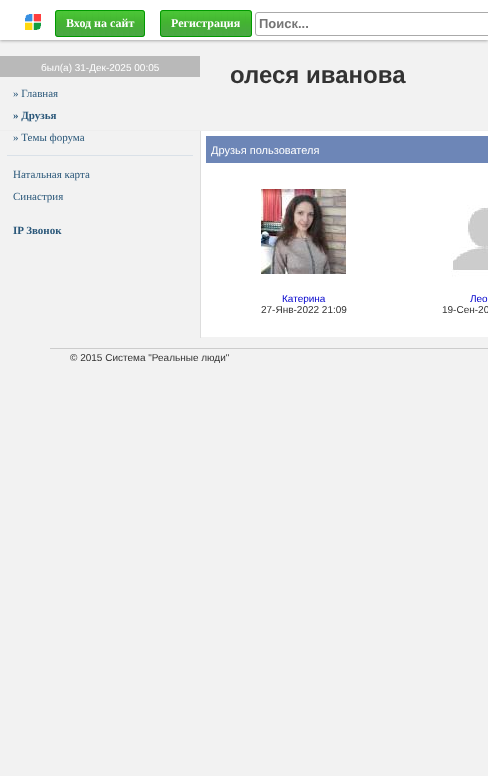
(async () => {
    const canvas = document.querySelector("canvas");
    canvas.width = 488;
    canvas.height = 776;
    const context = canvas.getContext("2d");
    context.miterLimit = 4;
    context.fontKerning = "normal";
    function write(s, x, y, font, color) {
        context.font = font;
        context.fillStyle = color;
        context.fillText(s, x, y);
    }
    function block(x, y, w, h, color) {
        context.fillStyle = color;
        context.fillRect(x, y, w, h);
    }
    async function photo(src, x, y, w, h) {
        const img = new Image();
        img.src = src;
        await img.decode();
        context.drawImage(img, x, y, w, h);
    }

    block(0, 0, 488, 776, "rgb(242, 242, 242)");
    context.fillStyle = "rgb(170, 170, 170)";
    context.filter = "blur(1.5px)";
    context.beginPath();
    context.rect(0, 1, 488, 40);
    context.fill();
    context.filter = "none";
    block(0, 0, 488, 40, "rgb(255, 255, 255)");
    await photo("media/1.png", 25, 14, 16, 16);
    await photo("media/2.png", 55, 10, 90, 27);
    context.beginPath();
    context.roundRect(55.5, 10.5, 89, 26, 2.5);
    context.strokeStyle = "rgb(0, 153, 0)";
    context.stroke();
    write("Вход на сайт", 66, 27, "bold 12px Liberation Serif", "rgb(255, 255, 255)");
    await photo("media/3.png", 160, 10, 92, 27);
    context.beginPath();
    context.roundRect(160.5, 10.5, 91, 26, 2.5);
    context.stroke();
    write("Регистрация", 171, 27, "bold 12px Liberation Serif", "rgb(255, 255, 255)");
    context.beginPath();
    context.roundRect(255.5, 12.5, 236, 23, 2.5);
    context.strokeStyle = "rgb(170, 170, 170)";
    context.stroke();
    write("Поиск...", 259, 28, "bold 13px Liberation Sans", "rgb(117, 117, 117)");
    block(0, 130, 488, 1, "rgb(238, 238, 238)");
    block(0, 56, 200, 21, "rgb(185, 185, 185)");
    write("был(а) 31-Дек-2025 00:05", 41, 71, "10px Liberation Sans", "rgb(255, 255, 255)");
    write("» Главная", 13, 97, "11px Liberation Serif", "rgb(43, 88, 122)");
    write("» Друзья", 13, 119, "bold 11px Liberation Serif", "rgb(43, 88, 122)");
    write("» Темы форума", 13, 141, "11px Liberation Serif", "rgb(43, 88, 122)");
    block(7, 155, 186, 1, "rgb(218, 225, 232)");
    write("Натальная карта", 13, 178, "11px Liberation Serif", "rgb(43, 88, 122)");
    write("Синастрия", 13, 200, "11px Liberation Serif", "rgb(43, 88, 122)");
    write("IP Звонок", 13, 234, "bold 11px Liberation Serif", "rgb(43, 88, 122)");
    block(201, 131, 287, 206, "rgb(255, 255, 255)");
    block(200, 131, 1, 207, "rgb(221, 221, 221)");
    block(206, 136, 282, 27, "rgb(109, 134, 183)");
    write("Друзья пользователя", 211, 154, "11px Liberation Sans", "rgb(255, 255, 255)");
    await photo("media/4.png", 261, 189, 85, 85);
    write("Катерина", 282, 302, "10px Liberation Sans", "rgb(0, 0, 204)");
    write("27-Янв-2022 21:09", 261, 313, "10px Liberation Sans", "rgb(51, 51, 51)");
    await photo("media/5.png", 451, 205, 37, 72);
    write("Лео", 470, 302, "10px Liberation Sans", "rgb(0, 0, 204)");
    write("19-Сен-20", 442, 313, "10px Liberation Sans", "rgb(51, 51, 51)");
    write("олеся иванова", 230, 83, "bold 24px Liberation Sans", "rgb(51, 51, 51)");
    block(50, 348, 438, 1, "rgb(204, 204, 204)");
    write("© 2015 Система \"Реальные люди\"", 70, 361, "10px Liberation Sans", "rgb(51, 51, 51)");
})();
